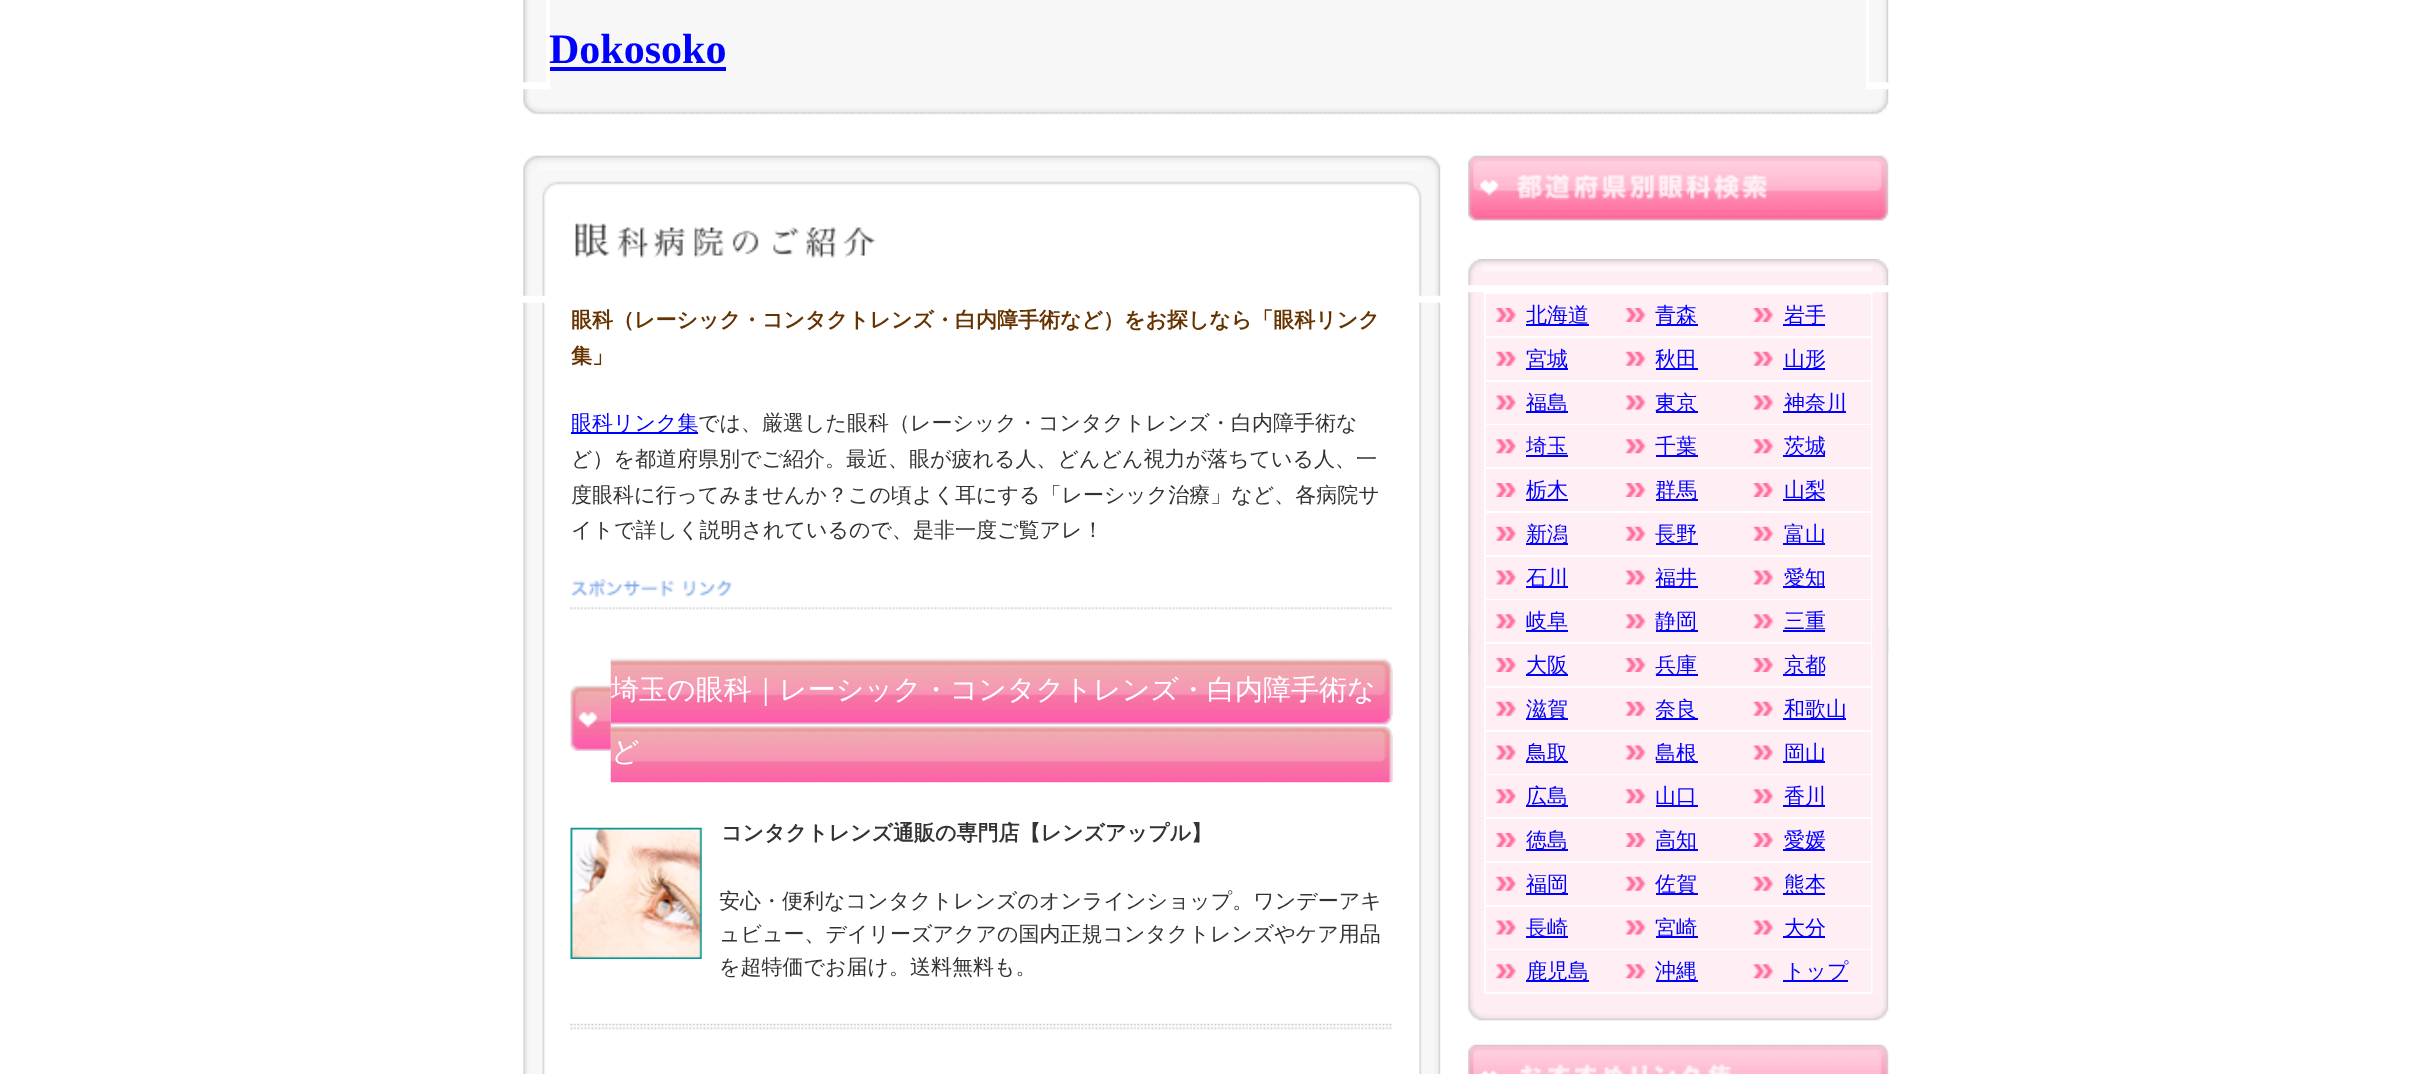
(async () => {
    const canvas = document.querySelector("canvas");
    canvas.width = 2410;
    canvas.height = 1074;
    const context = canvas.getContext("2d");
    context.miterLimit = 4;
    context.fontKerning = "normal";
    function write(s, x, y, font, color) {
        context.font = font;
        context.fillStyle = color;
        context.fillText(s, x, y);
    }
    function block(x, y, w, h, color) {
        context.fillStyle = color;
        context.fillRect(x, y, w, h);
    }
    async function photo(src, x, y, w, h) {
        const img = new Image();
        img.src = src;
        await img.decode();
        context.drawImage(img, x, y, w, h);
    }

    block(0, 0, 2410, 1074, "rgb(255, 255, 255)");
    await photo("media/1.png", 523, 0, 23, 83);
    block(550, 0, 1316, 89, "rgb(247, 247, 247)");
    write("Dokosoko", 549, 63, "bold 42px Liberation Serif", "rgb(0, 0, 255)");
    block(550, 67, 176, 4, "rgb(0, 0, 255)");
    await photo("media/2.png", 1869, 0, 20, 83);
    await photo("media/3.png", 523, 89, 1366, 26);
    await photo("media/4.png", 523, 155, 918, 141);
    await photo("media/5.png", 523, 302, 22, 772);
    write("眼科（レーシック・コンタクトレンズ・白内障手術など）をお探しなら「眼科リンク", 571, 327, "bold 21px WenQuanYi Zen Hei", "rgb(102, 51, 0)");
    write("集」", 571, 363, "bold 21px WenQuanYi Zen Hei", "rgb(102, 51, 0)");
    block(571, 432, 127, 2, "rgb(0, 0, 255)");
    write("眼科リンク集", 571, 430, "500 21px WenQuanYi Zen Hei", "rgb(0, 0, 255)");
    write("では、厳選した眼科（レーシック・コンタクトレンズ・白内障手術な", 698, 430, "500 21px WenQuanYi Zen Hei", "rgb(51, 51, 51)");
    write("ど）を都道府県別でご紹介。最近、眼が疲れる人、どんどん視力が落ちている人、一", 571, 466, "500 21px WenQuanYi Zen Hei", "rgb(51, 51, 51)");
    write("度眼科に行ってみませんか？この頃よく耳にする「レーシック治療」など、各病院サ", 571, 502, "500 21px WenQuanYi Zen Hei", "rgb(51, 51, 51)");
    write("イトで詳しく説明されているので、是非一度ご覧アレ！", 571, 537, "500 21px WenQuanYi Zen Hei", "rgb(51, 51, 51)");
    await photo("media/6.png", 570, 579, 822, 31);
    await photo("media/8.png", 610, 658, 783, 125);
    await photo("media/7.png", 570, 684, 41, 67);
    write("埼玉の眼科｜レーシック・コンタクトレンズ・白内障手術な", 611, 699, "500 28px WenQuanYi Zen Hei", "rgb(255, 255, 255)");
    write("ど", 611, 761, "500 28px WenQuanYi Zen Hei", "rgb(255, 255, 255)");
    await photo("media/9.png", 570, 827, 132, 132);
    write("コンタクトレンズ通販の専門店【レンズアップル】", 721, 840, "bold 21px WenQuanYi Zen Hei", "rgb(51, 51, 51)");
    write("安心・便利なコンタクトレンズのオンラインショップ。ワンデーアキ", 719, 908, "500 21px WenQuanYi Zen Hei", "rgb(51, 51, 51)");
    write("ュビュー、デイリーズアクアの国内正規コンタクトレンズやケア用品", 719, 941, "500 21px WenQuanYi Zen Hei", "rgb(51, 51, 51)");
    write("を超特価でお届け。送料無料も。", 719, 974, "500 21px WenQuanYi Zen Hei", "rgb(51, 51, 51)");
    await photo("media/10.png", 570, 1023, 822, 7);
    await photo("media/11.png", 1419, 302, 22, 772);
    await photo("media/12.png", 1468, 155, 421, 66);
    await photo("media/13.png", 1468, 259, 421, 27);
    await photo("media/14.png", 1468, 292, 16, 702);
    await photo("media/15.png", 1468, 628, 16, 25);
    block(1486, 294, 385, 42, "rgb(255, 238, 243)");
    await photo("media/16.png", 1496, 308, 20, 14);
    block(1526, 324, 63, 2, "rgb(0, 0, 255)");
    write("北海道", 1526, 322, "500 21px WenQuanYi Zen Hei", "rgb(0, 0, 255)");
    await photo("media/17.png", 1625, 308, 21, 14);
    block(1656, 324, 42, 2, "rgb(0, 0, 255)");
    write("青森", 1655, 322, "500 21px WenQuanYi Zen Hei", "rgb(0, 0, 255)");
    await photo("media/18.png", 1753, 308, 21, 14);
    block(1783, 324, 42, 2, "rgb(0, 0, 255)");
    write("岩手", 1784, 322, "500 21px WenQuanYi Zen Hei", "rgb(0, 0, 255)");
    block(1486, 338, 385, 42, "rgb(255, 238, 243)");
    await photo("media/19.png", 1496, 351, 20, 15);
    block(1526, 368, 42, 2, "rgb(0, 0, 255)");
    write("宮城", 1526, 366, "500 21px WenQuanYi Zen Hei", "rgb(0, 0, 255)");
    await photo("media/20.png", 1625, 351, 21, 15);
    block(1656, 368, 42, 2, "rgb(0, 0, 255)");
    write("秋田", 1655, 366, "500 21px WenQuanYi Zen Hei", "rgb(0, 0, 255)");
    await photo("media/21.png", 1753, 351, 21, 15);
    block(1783, 368, 42, 2, "rgb(0, 0, 255)");
    write("山形", 1784, 366, "500 21px WenQuanYi Zen Hei", "rgb(0, 0, 255)");
    block(1486, 382, 385, 42, "rgb(255, 238, 243)");
    await photo("media/22.png", 1496, 395, 20, 15);
    block(1526, 411, 42, 2, "rgb(0, 0, 255)");
    write("福島", 1526, 410, "500 21px WenQuanYi Zen Hei", "rgb(0, 0, 255)");
    await photo("media/23.png", 1625, 395, 21, 15);
    block(1656, 411, 42, 2, "rgb(0, 0, 255)");
    write("東京", 1655, 410, "500 21px WenQuanYi Zen Hei", "rgb(0, 0, 255)");
    await photo("media/24.png", 1753, 395, 21, 15);
    block(1783, 411, 63, 2, "rgb(0, 0, 255)");
    write("神奈川", 1784, 410, "500 21px WenQuanYi Zen Hei", "rgb(0, 0, 255)");
    block(1486, 425, 385, 42, "rgb(255, 238, 243)");
    await photo("media/25.png", 1496, 439, 20, 15);
    block(1526, 455, 42, 2, "rgb(0, 0, 255)");
    write("埼玉", 1526, 453, "500 21px WenQuanYi Zen Hei", "rgb(0, 0, 255)");
    await photo("media/26.png", 1625, 439, 21, 15);
    block(1656, 455, 42, 2, "rgb(0, 0, 255)");
    write("千葉", 1655, 453, "500 21px WenQuanYi Zen Hei", "rgb(0, 0, 255)");
    await photo("media/27.png", 1753, 439, 21, 15);
    block(1783, 455, 42, 2, "rgb(0, 0, 255)");
    write("茨城", 1784, 453, "500 21px WenQuanYi Zen Hei", "rgb(0, 0, 255)");
    block(1486, 469, 385, 42, "rgb(255, 238, 243)");
    await photo("media/16.png", 1496, 483, 20, 14);
    block(1526, 499, 42, 2, "rgb(0, 0, 255)");
    write("栃木", 1526, 497, "500 21px WenQuanYi Zen Hei", "rgb(0, 0, 255)");
    await photo("media/17.png", 1625, 483, 21, 14);
    block(1656, 499, 42, 2, "rgb(0, 0, 255)");
    write("群馬", 1655, 497, "500 21px WenQuanYi Zen Hei", "rgb(0, 0, 255)");
    await photo("media/18.png", 1753, 483, 21, 14);
    block(1783, 499, 42, 2, "rgb(0, 0, 255)");
    write("山梨", 1784, 497, "500 21px WenQuanYi Zen Hei", "rgb(0, 0, 255)");
    block(1486, 513, 385, 42, "rgb(255, 238, 243)");
    await photo("media/19.png", 1496, 526, 20, 15);
    block(1526, 543, 42, 2, "rgb(0, 0, 255)");
    write("新潟", 1526, 541, "500 21px WenQuanYi Zen Hei", "rgb(0, 0, 255)");
    await photo("media/20.png", 1625, 526, 21, 15);
    block(1656, 543, 42, 2, "rgb(0, 0, 255)");
    write("長野", 1655, 541, "500 21px WenQuanYi Zen Hei", "rgb(0, 0, 255)");
    await photo("media/21.png", 1753, 526, 21, 15);
    block(1783, 543, 42, 2, "rgb(0, 0, 255)");
    write("富山", 1784, 541, "500 21px WenQuanYi Zen Hei", "rgb(0, 0, 255)");
    block(1486, 557, 385, 42, "rgb(255, 238, 243)");
    await photo("media/22.png", 1496, 570, 20, 15);
    block(1526, 586, 42, 2, "rgb(0, 0, 255)");
    write("石川", 1526, 585, "500 21px WenQuanYi Zen Hei", "rgb(0, 0, 255)");
    await photo("media/23.png", 1625, 570, 21, 15);
    block(1656, 586, 42, 2, "rgb(0, 0, 255)");
    write("福井", 1655, 585, "500 21px WenQuanYi Zen Hei", "rgb(0, 0, 255)");
    await photo("media/24.png", 1753, 570, 21, 15);
    block(1783, 586, 42, 2, "rgb(0, 0, 255)");
    write("愛知", 1784, 585, "500 21px WenQuanYi Zen Hei", "rgb(0, 0, 255)");
    block(1486, 600, 385, 42, "rgb(255, 238, 243)");
    await photo("media/25.png", 1496, 614, 20, 15);
    block(1526, 630, 42, 2, "rgb(0, 0, 255)");
    write("岐阜", 1526, 628, "500 21px WenQuanYi Zen Hei", "rgb(0, 0, 255)");
    await photo("media/26.png", 1625, 614, 21, 15);
    block(1656, 630, 42, 2, "rgb(0, 0, 255)");
    write("静岡", 1655, 628, "500 21px WenQuanYi Zen Hei", "rgb(0, 0, 255)");
    await photo("media/27.png", 1753, 614, 21, 15);
    write("三重", 1784, 628, "500 21px WenQuanYi Zen Hei", "rgb(0, 0, 255)");
    block(1783, 630, 42, 2, "rgb(0, 0, 255)");
    block(1486, 644, 385, 42, "rgb(255, 238, 243)");
    await photo("media/16.png", 1496, 658, 20, 14);
    block(1526, 674, 42, 2, "rgb(0, 0, 255)");
    write("大阪", 1526, 672, "500 21px WenQuanYi Zen Hei", "rgb(0, 0, 255)");
    await photo("media/17.png", 1625, 658, 21, 14);
    block(1656, 674, 42, 2, "rgb(0, 0, 255)");
    write("兵庫", 1655, 672, "500 21px WenQuanYi Zen Hei", "rgb(0, 0, 255)");
    await photo("media/18.png", 1753, 658, 21, 14);
    block(1783, 674, 42, 2, "rgb(0, 0, 255)");
    write("京都", 1784, 672, "500 21px WenQuanYi Zen Hei", "rgb(0, 0, 255)");
    block(1486, 688, 385, 42, "rgb(255, 238, 243)");
    await photo("media/19.png", 1496, 701, 20, 15);
    block(1526, 718, 42, 2, "rgb(0, 0, 255)");
    write("滋賀", 1526, 716, "500 21px WenQuanYi Zen Hei", "rgb(0, 0, 255)");
    await photo("media/20.png", 1625, 701, 21, 15);
    block(1656, 718, 42, 2, "rgb(0, 0, 255)");
    write("奈良", 1655, 716, "500 21px WenQuanYi Zen Hei", "rgb(0, 0, 255)");
    await photo("media/21.png", 1753, 701, 21, 15);
    block(1783, 718, 63, 2, "rgb(0, 0, 255)");
    write("和歌山", 1784, 716, "500 21px WenQuanYi Zen Hei", "rgb(0, 0, 255)");
    block(1486, 732, 385, 42, "rgb(255, 238, 243)");
    await photo("media/22.png", 1496, 745, 20, 15);
    block(1526, 761, 42, 2, "rgb(0, 0, 255)");
    write("鳥取", 1526, 760, "500 21px WenQuanYi Zen Hei", "rgb(0, 0, 255)");
    await photo("media/23.png", 1625, 745, 21, 15);
    block(1656, 761, 42, 2, "rgb(0, 0, 255)");
    write("島根", 1655, 760, "500 21px WenQuanYi Zen Hei", "rgb(0, 0, 255)");
    await photo("media/24.png", 1753, 745, 21, 15);
    block(1783, 761, 42, 2, "rgb(0, 0, 255)");
    write("岡山", 1784, 760, "500 21px WenQuanYi Zen Hei", "rgb(0, 0, 255)");
    block(1486, 775, 385, 42, "rgb(255, 238, 243)");
    await photo("media/25.png", 1496, 789, 20, 15);
    block(1526, 805, 42, 2, "rgb(0, 0, 255)");
    write("広島", 1526, 803, "500 21px WenQuanYi Zen Hei", "rgb(0, 0, 255)");
    await photo("media/26.png", 1625, 789, 21, 15);
    block(1656, 805, 42, 2, "rgb(0, 0, 255)");
    write("山口", 1655, 803, "500 21px WenQuanYi Zen Hei", "rgb(0, 0, 255)");
    await photo("media/27.png", 1753, 789, 21, 15);
    block(1783, 805, 42, 2, "rgb(0, 0, 255)");
    write("香川", 1784, 803, "500 21px WenQuanYi Zen Hei", "rgb(0, 0, 255)");
    block(1486, 819, 385, 42, "rgb(255, 238, 243)");
    await photo("media/16.png", 1496, 833, 20, 14);
    block(1526, 849, 42, 2, "rgb(0, 0, 255)");
    write("徳島", 1526, 847, "500 21px WenQuanYi Zen Hei", "rgb(0, 0, 255)");
    await photo("media/17.png", 1625, 833, 21, 14);
    block(1656, 849, 42, 2, "rgb(0, 0, 255)");
    write("高知", 1655, 847, "500 21px WenQuanYi Zen Hei", "rgb(0, 0, 255)");
    await photo("media/18.png", 1753, 833, 21, 14);
    block(1783, 849, 42, 2, "rgb(0, 0, 255)");
    write("愛媛", 1784, 847, "500 21px WenQuanYi Zen Hei", "rgb(0, 0, 255)");
    block(1486, 863, 385, 42, "rgb(255, 238, 243)");
    await photo("media/19.png", 1496, 876, 20, 15);
    block(1526, 893, 42, 2, "rgb(0, 0, 255)");
    write("福岡", 1526, 891, "500 21px WenQuanYi Zen Hei", "rgb(0, 0, 255)");
    await photo("media/20.png", 1625, 876, 21, 15);
    block(1656, 893, 42, 2, "rgb(0, 0, 255)");
    write("佐賀", 1655, 891, "500 21px WenQuanYi Zen Hei", "rgb(0, 0, 255)");
    await photo("media/21.png", 1753, 876, 21, 15);
    block(1783, 893, 42, 2, "rgb(0, 0, 255)");
    write("熊本", 1784, 891, "500 21px WenQuanYi Zen Hei", "rgb(0, 0, 255)");
    block(1486, 907, 385, 42, "rgb(255, 238, 243)");
    await photo("media/22.png", 1496, 920, 20, 15);
    block(1526, 936, 42, 2, "rgb(0, 0, 255)");
    write("長崎", 1526, 935, "500 21px WenQuanYi Zen Hei", "rgb(0, 0, 255)");
    await photo("media/23.png", 1625, 920, 21, 15);
    block(1656, 936, 42, 2, "rgb(0, 0, 255)");
    write("宮崎", 1655, 935, "500 21px WenQuanYi Zen Hei", "rgb(0, 0, 255)");
    await photo("media/24.png", 1753, 920, 21, 15);
    block(1783, 936, 42, 2, "rgb(0, 0, 255)");
    write("大分", 1784, 935, "500 21px WenQuanYi Zen Hei", "rgb(0, 0, 255)");
    block(1486, 950, 385, 42, "rgb(255, 238, 243)");
    await photo("media/25.png", 1496, 964, 20, 15);
    block(1526, 980, 63, 2, "rgb(0, 0, 255)");
    write("鹿児島", 1526, 978, "500 21px WenQuanYi Zen Hei", "rgb(0, 0, 255)");
    await photo("media/26.png", 1625, 964, 21, 15);
    block(1656, 980, 42, 2, "rgb(0, 0, 255)");
    write("沖縄", 1655, 978, "500 21px WenQuanYi Zen Hei", "rgb(0, 0, 255)");
    await photo("media/27.png", 1753, 964, 21, 15);
    block(1783, 980, 65, 2, "rgb(0, 0, 255)");
    write("トップ", 1784, 978, "500 21px WenQuanYi Zen Hei", "rgb(0, 0, 255)");
    await photo("media/28.png", 1872, 292, 17, 702);
    await photo("media/29.png", 1872, 628, 17, 25);
    await photo("media/30.png", 1468, 994, 421, 27);
    await photo("media/31.png", 1468, 1044, 421, 30);
})();
